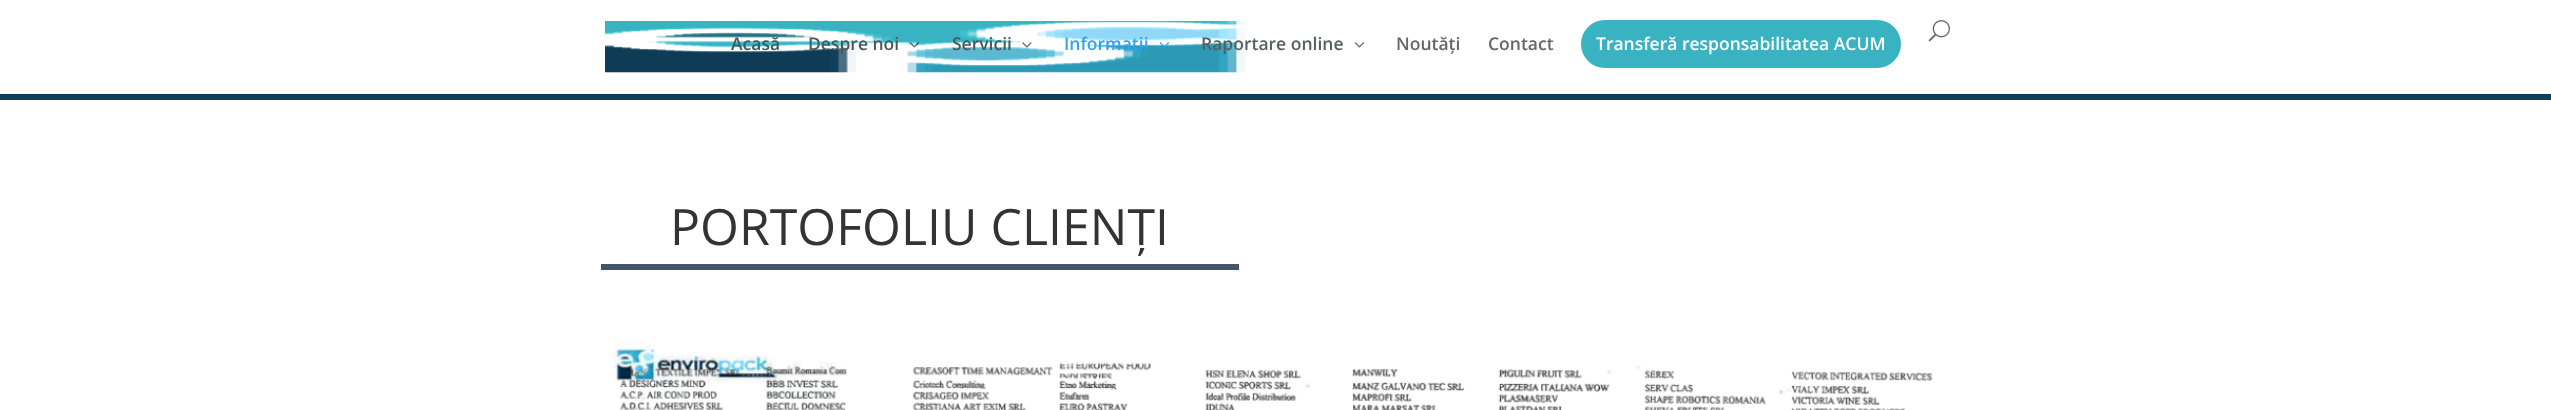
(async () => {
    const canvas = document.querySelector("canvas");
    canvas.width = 2551;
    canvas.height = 410;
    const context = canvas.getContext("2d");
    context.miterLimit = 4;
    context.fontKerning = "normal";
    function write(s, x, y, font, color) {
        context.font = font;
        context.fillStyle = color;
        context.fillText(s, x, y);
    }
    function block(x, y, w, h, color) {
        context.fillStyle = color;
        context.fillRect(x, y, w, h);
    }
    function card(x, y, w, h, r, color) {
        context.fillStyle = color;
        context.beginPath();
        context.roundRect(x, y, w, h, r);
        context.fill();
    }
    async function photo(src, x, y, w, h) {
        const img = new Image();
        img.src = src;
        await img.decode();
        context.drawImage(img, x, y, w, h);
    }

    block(0, 0, 2551, 410, "rgb(15, 65, 94)");
    block(0, 94, 2551, 1, "rgb(14, 59, 85)");
    block(0, 0, 2551, 94, "rgb(255, 255, 255)");
    await photo("media/1.png", 605, 21, 640, 52);
    await photo("media/2.png", 1928, 20, 22, 22);
    write("Acasă", 731, 50, "600 17.5px Open Sans", "rgb(68, 89, 92)");
    write("Despre noi", 808, 50, "600 17.5px Open Sans", "rgb(74, 89, 92)");
    await photo("media/3.png", 909, 42, 10, 6);
    write("Servicii", 952, 50, "600 17.5px Open Sans", "rgb(68, 89, 92)");
    await photo("media/4.png", 1022, 42, 10, 6);
    write("Informații", 1064, 50, "600 17.5px Open Sans", "rgb(46, 163, 242)");
    await photo("media/5.png", 1159, 42, 10, 6);
    write("Raportare online", 1201, 50, "600 17.5px Open Sans", "rgb(86, 95, 97)");
    await photo("media/6.png", 1354, 42, 10, 6);
    write("Noutăți", 1396, 50, "600 17.5px Open Sans", "rgb(102, 102, 102)");
    write("Contact", 1488, 50, "600 17.5px Open Sans", "rgb(102, 102, 102)");
    card(1581, 20, 320, 48, 24, "rgb(57, 179, 194)");
    write("Transferă responsabilitatea ACUM", 1596, 50, "600 17.5px Open Sans", "rgb(255, 255, 255)");
    block(0, 100, 2551, 310, "rgb(255, 255, 255)");
    block(601, 264, 638, 6, "rgb(68, 84, 106)");
    write("PORTOFOLIU CLIENȚI", 670, 245, "50px Open Sans", "rgb(51, 51, 51)");
    await photo("media/7.png", 614, 341, 1319, 69);
})();
